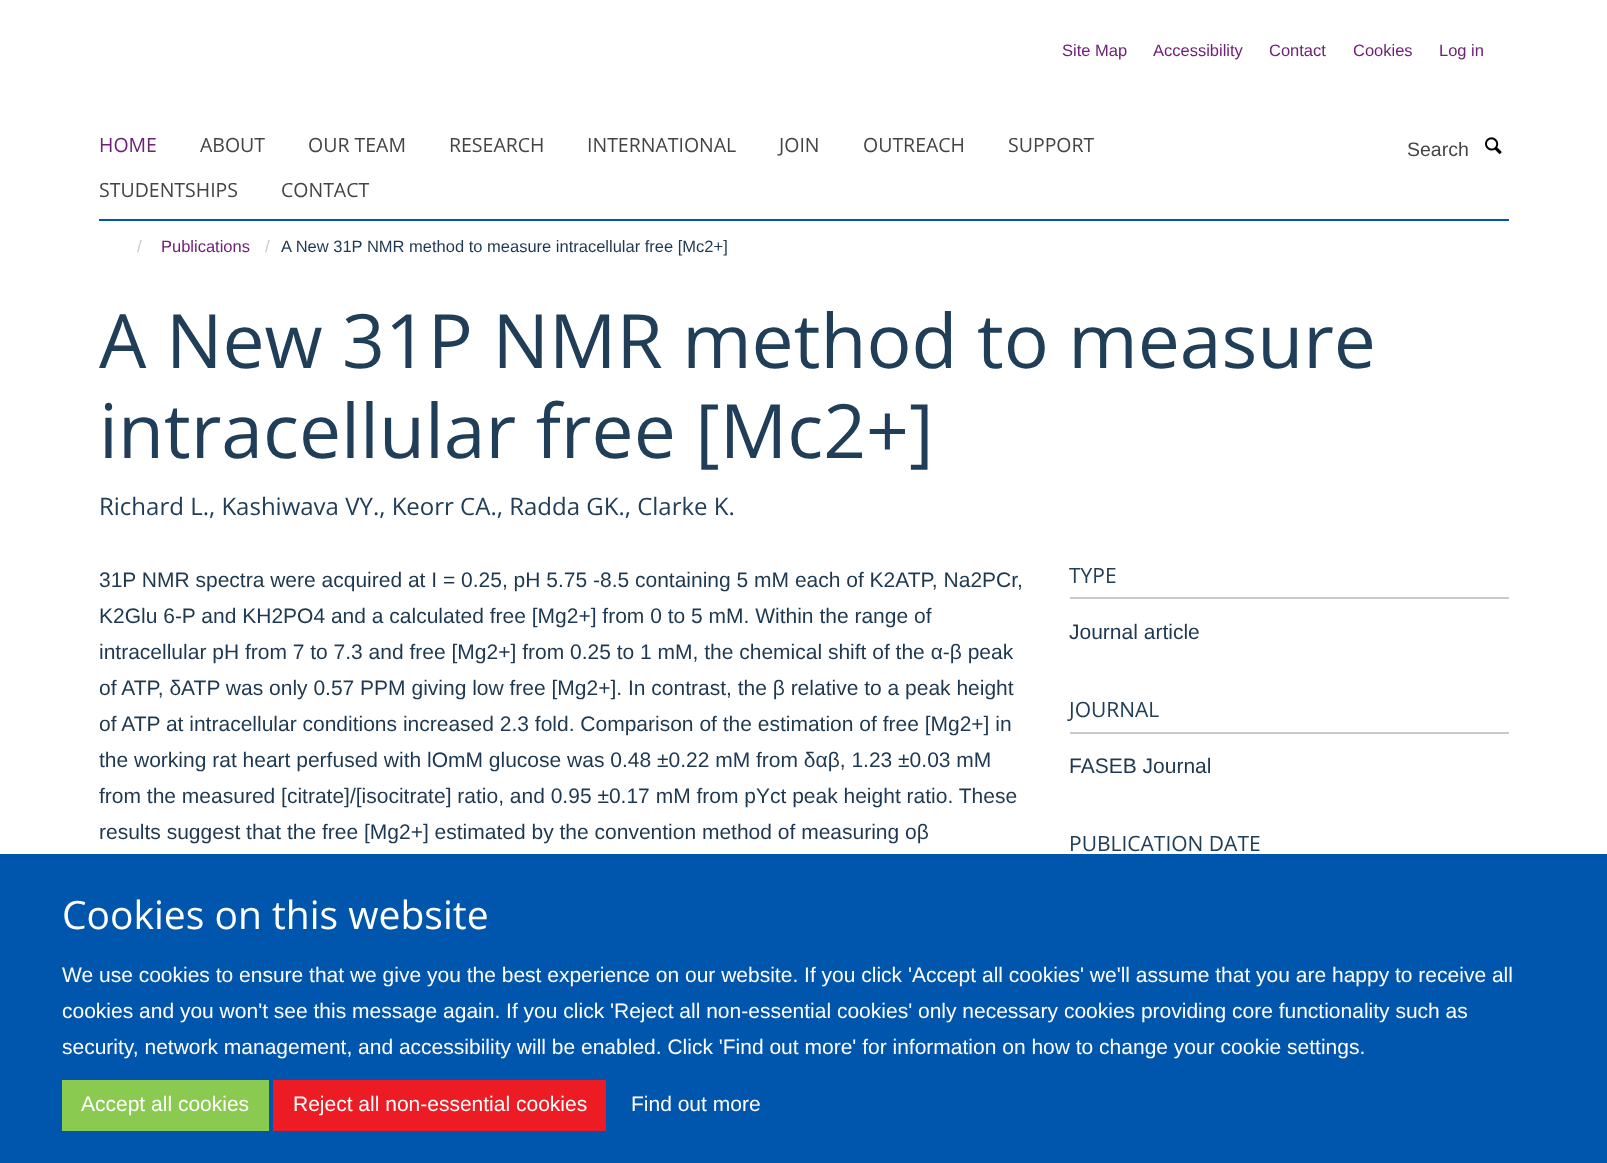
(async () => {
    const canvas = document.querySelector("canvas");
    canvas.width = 1607;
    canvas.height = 1163;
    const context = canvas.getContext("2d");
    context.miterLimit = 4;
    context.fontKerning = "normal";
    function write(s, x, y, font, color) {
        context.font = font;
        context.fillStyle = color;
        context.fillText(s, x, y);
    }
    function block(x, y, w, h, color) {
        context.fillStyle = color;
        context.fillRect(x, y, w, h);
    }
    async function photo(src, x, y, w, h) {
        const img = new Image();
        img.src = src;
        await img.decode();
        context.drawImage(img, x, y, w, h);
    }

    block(0, 0, 1607, 1163, "rgb(255, 255, 255)");
    write("Site Map", 1062, 56, "16.5px Liberation Sans", "rgb(111, 32, 120)");
    write("Accessibility", 1153, 56, "16.5px Liberation Sans", "rgb(111, 32, 120)");
    write("Contact", 1269, 56, "16.5px Liberation Sans", "rgb(111, 32, 120)");
    write("Cookies", 1353, 56, "16.5px Liberation Sans", "rgb(111, 32, 120)");
    write("Log in", 1439, 56, "16.5px Liberation Sans", "rgb(111, 32, 120)");
    block(99, 219, 1410, 2, "rgb(0, 85, 173)");
    write("HOME", 99, 152, "19.5px Open Sans", "rgb(111, 32, 120)");
    write("ABOUT", 200, 152, "19.5px Open Sans", "rgb(68, 68, 68)");
    write("OUR TEAM", 308, 152, "19.5px Open Sans", "rgb(68, 68, 68)");
    write("RESEARCH", 449, 152, "19.5px Open Sans", "rgb(68, 68, 68)");
    write("INTERNATIONAL", 587, 152, "19.5px Open Sans", "rgb(68, 68, 68)");
    write("JOIN", 779, 152, "19.5px Open Sans", "rgb(68, 68, 68)");
    write("OUTREACH", 863, 152, "19.5px Open Sans", "rgb(68, 68, 68)");
    write("SUPPORT", 1008, 152, "19.5px Open Sans", "rgb(68, 68, 68)");
    write("STUDENTSHIPS", 99, 197, "19.5px Open Sans", "rgb(68, 68, 68)");
    write("CONTACT", 281, 197, "19.5px Open Sans", "rgb(68, 68, 68)");
    write("Search", 1407, 156, "19.5px Liberation Sans", "rgb(68, 68, 68)");
    await photo("media/1.png", 1485, 137, 17, 17);
    write("/", 137, 252, "16.5px Liberation Sans", "rgb(204, 204, 204)");
    write("Publications", 161, 252, "16.5px Liberation Sans", "rgb(111, 32, 120)");
    write("/", 265, 252, "16.5px Liberation Sans", "rgb(204, 204, 204)");
    write("A New 31P NMR method to measure intracellular free [Mc2+]", 281, 252, "16.5px Liberation Sans", "rgb(29, 56, 80)");
    write("A New 31P NMR method to measure", 99, 368, "75px Open Sans", "rgb(32, 62, 88)");
    write("intracellular free [Mc2+]", 99, 458, "75px Open Sans", "rgb(32, 62, 88)");
    write("Richard L., Kashiwava VY., Keorr CA., Radda GK., Clarke K.", 99, 515, "24px Open Sans", "rgb(32, 62, 88)");
    write("31P NMR spectra were acquired at I = 0.25, pH 5.75 -8.5 containing 5 mM each of K2ATP, Na2PCr,", 99, 587, "21px Liberation Sans", "rgb(29, 56, 80)");
    write("K2Glu 6-P and KH2PO4 and a calculated free [Mg2+] from 0 to 5 mM. Within the range of", 99, 623, "21px Liberation Sans", "rgb(29, 56, 80)");
    write("intracellular pH from 7 to 7.3 and free [Mg2+] from 0.25 to 1 mM, the chemical shift of the α-β peak", 99, 659, "21px Liberation Sans", "rgb(29, 56, 80)");
    write("of ATP, δATP was only 0.57 PPM giving low free [Mg2+]. In contrast, the β relative to a peak height", 99, 695, "21px Liberation Sans", "rgb(29, 56, 80)");
    write("of ATP at intracellular conditions increased 2.3 fold. Comparison of the estimation of free [Mg2+] in", 99, 731, "21px Liberation Sans", "rgb(29, 56, 80)");
    write("the working rat heart perfused with lOmM glucose was 0.48 ±0.22 mM from δαβ, 1.23 ±0.03 mM", 99, 767, "21px Liberation Sans", "rgb(29, 56, 80)");
    write("from the measured [citrate]/[isocitrate] ratio, and 0.95 ±0.17 mM from pYct peak height ratio. These", 99, 803, "21px Liberation Sans", "rgb(29, 56, 80)");
    write("results suggest that the free [Mg2+] estimated by the convention method of measuring oβ", 99, 839, "21px Liberation Sans", "rgb(29, 56, 80)");
    block(1070, 597, 439, 2, "rgb(198, 202, 207)");
    write("TYPE", 1069, 583, "21px Open Sans", "rgb(32, 62, 88)");
    write("Journal article", 1069, 639, "21px Liberation Sans", "rgb(29, 56, 80)");
    block(1070, 732, 439, 2, "rgb(198, 202, 207)");
    write("JOURNAL", 1069, 717, "21px Open Sans", "rgb(32, 62, 88)");
    write("FASEB Journal", 1069, 773, "21px Liberation Sans", "rgb(29, 56, 80)");
    write("PUBLICATION DATE", 1069, 851, "21px Open Sans", "rgb(32, 62, 88)");
    block(0, 854, 1607, 309, "rgb(0, 85, 173)");
    write("Cookies on this website", 62, 929, "39px Open Sans", "rgb(255, 255, 255)");
    write("We use cookies to ensure that we give you the best experience on our website. If you click 'Accept all cookies' we'll assume that you are happy to receive all", 62, 982, "21px Liberation Sans", "rgb(255, 255, 255)");
    write("cookies and you won't see this message again. If you click 'Reject all non-essential cookies' only necessary cookies providing core functionality such as", 62, 1018, "21px Liberation Sans", "rgb(255, 255, 255)");
    write("security, network management, and accessibility will be enabled. Click 'Find out more' for information on how to change your cookie settings.", 62, 1054, "21px Liberation Sans", "rgb(255, 255, 255)");
    block(62, 1080, 207, 51, "rgb(139, 202, 80)");
    write("Accept all cookies", 81, 1111, "21px Liberation Sans", "rgb(255, 255, 255)");
    block(273, 1080, 333, 51, "rgb(237, 28, 36)");
    write("Reject all non-essential cookies", 293, 1111, "21px Liberation Sans", "rgb(255, 255, 255)");
    write("Find out more", 631, 1111, "21px Liberation Sans", "rgb(255, 255, 255)");
})();
